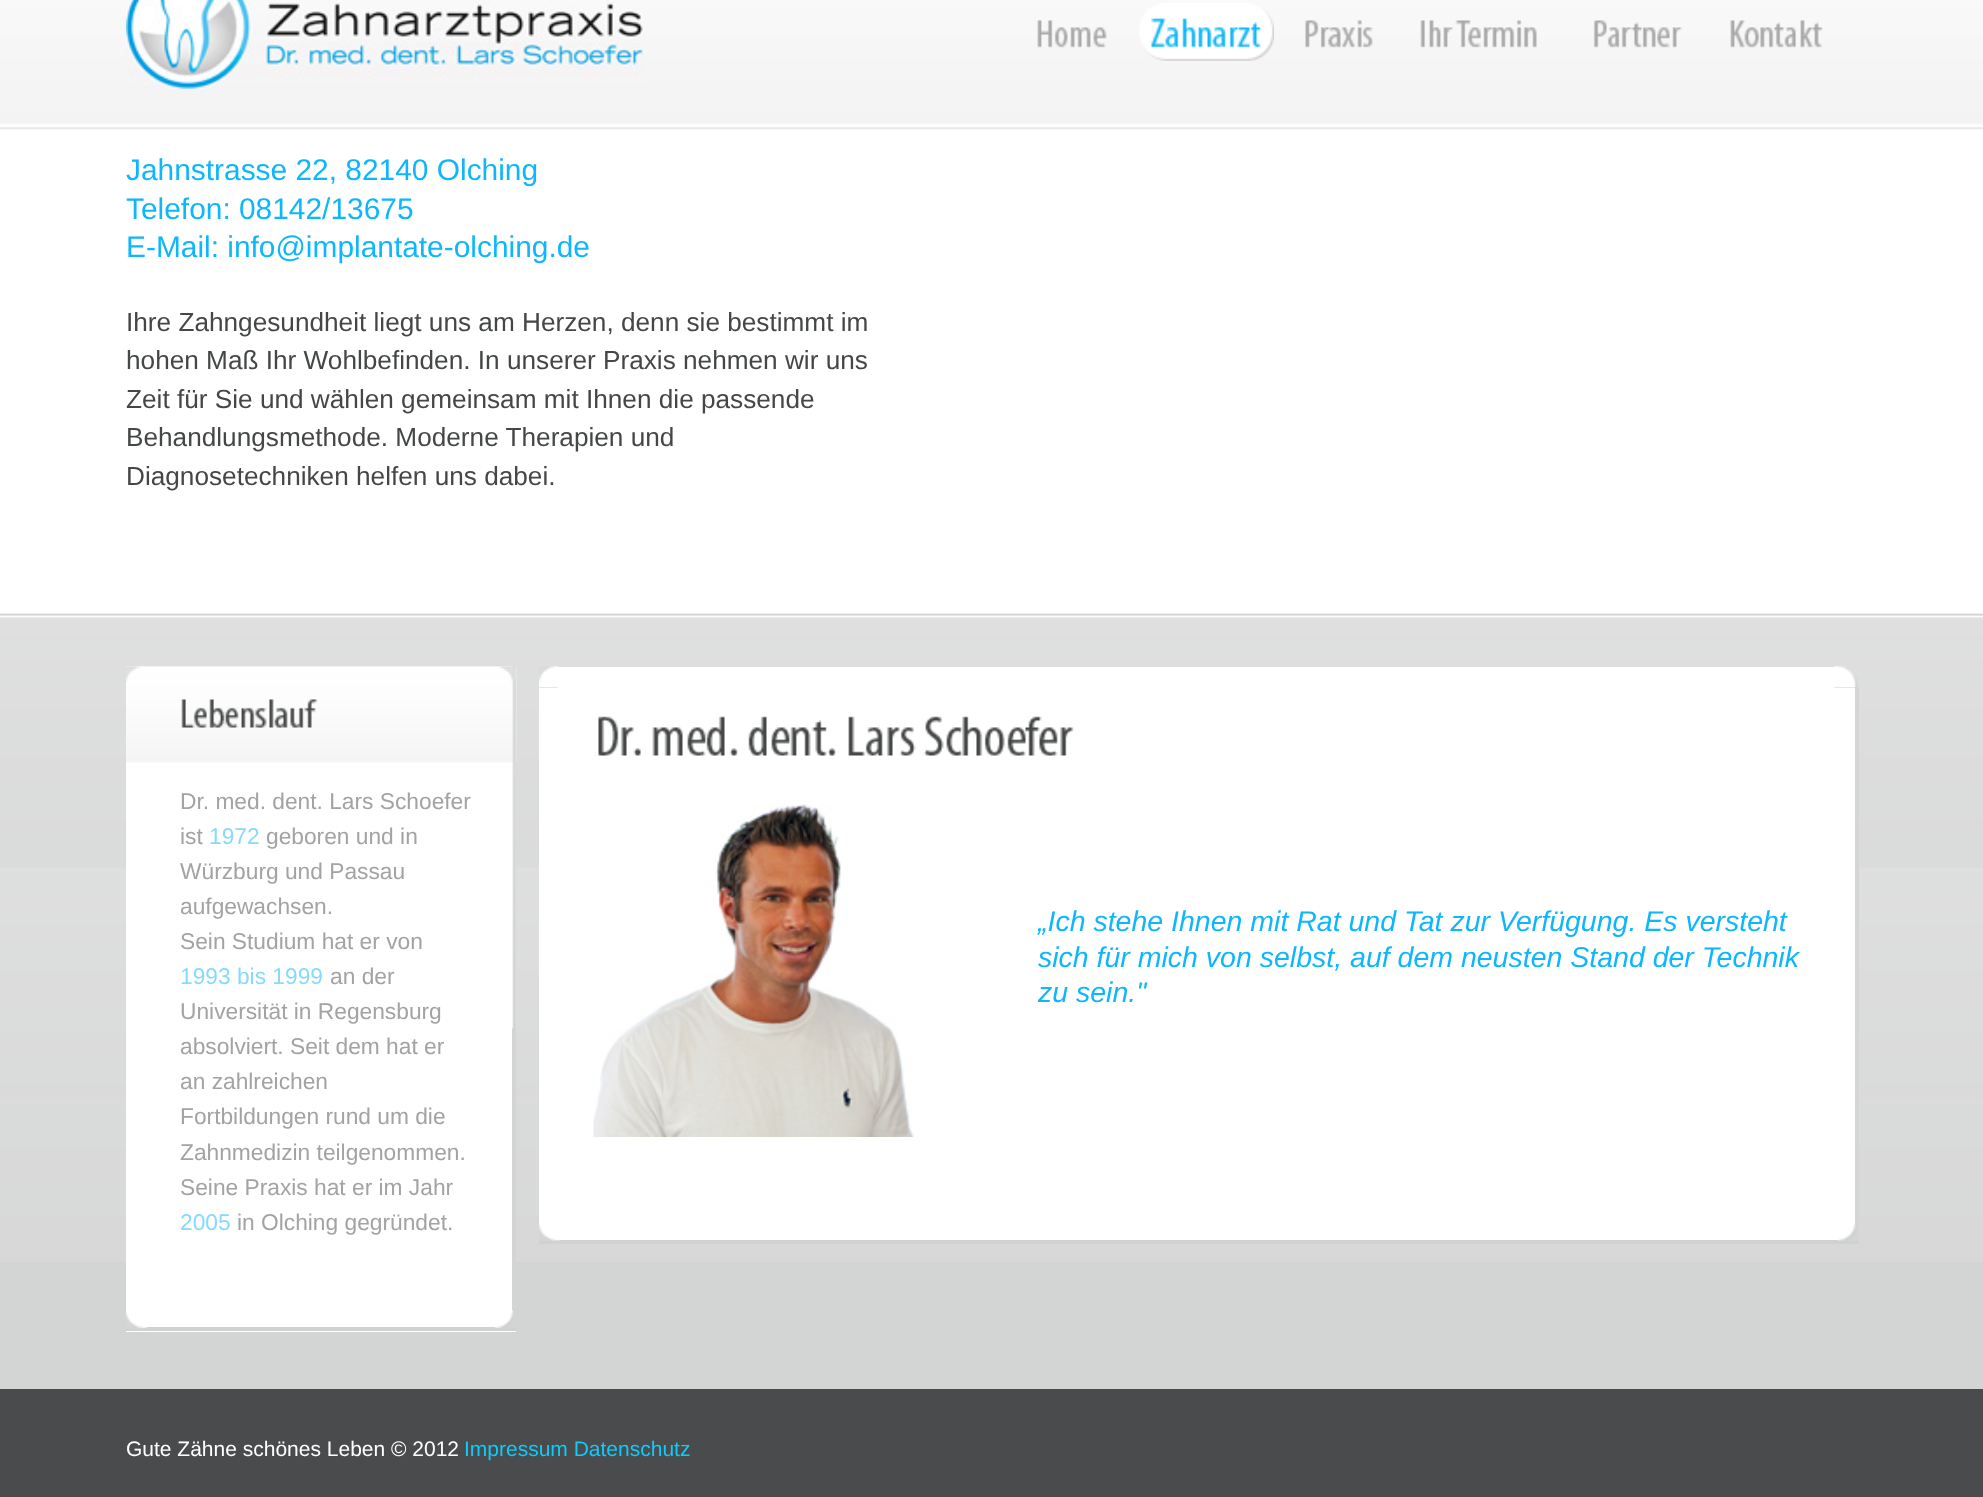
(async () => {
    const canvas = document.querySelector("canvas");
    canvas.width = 1983;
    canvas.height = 1497;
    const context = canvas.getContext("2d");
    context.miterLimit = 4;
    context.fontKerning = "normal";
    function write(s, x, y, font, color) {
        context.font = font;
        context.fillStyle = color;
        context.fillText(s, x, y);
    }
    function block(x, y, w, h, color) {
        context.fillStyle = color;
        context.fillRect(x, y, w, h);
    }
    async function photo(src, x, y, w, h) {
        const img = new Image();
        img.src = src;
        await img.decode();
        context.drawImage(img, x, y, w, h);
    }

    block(0, 0, 1983, 1497, "rgb(211, 212, 212)");
    await photo("media/1.png", 0, 0, 1983, 1262);
    block(0, 1389, 1983, 108, "rgb(73, 75, 76)");
    await photo("media/2.png", 126, 0, 518, 89);
    await photo("media/3.png", 1037, 20, 70, 28);
    await photo("media/4.png", 1139, 3, 135, 58);
    await photo("media/5.png", 1305, 20, 68, 28);
    await photo("media/6.png", 1420, 20, 117, 28);
    await photo("media/7.png", 1593, 20, 89, 28);
    await photo("media/8.png", 1730, 20, 93, 28);
    write("Jahnstrasse 22, 82140 Olching", 126, 180, "29.9px Liberation Sans", "rgb(14, 182, 252)");
    write("Telefon: 08142/13675", 126, 219, "29.9px Liberation Sans", "rgb(14, 182, 252)");
    write("E-Mail: info@implantate-olching.de", 126, 257, "29.9px Liberation Sans", "rgb(14, 182, 252)");
    write("Ihre Zahngesundheit liegt uns am Herzen, denn sie bestimmt im", 126, 331, "26.2px Liberation Sans", "rgb(69, 71, 71)");
    write("hohen Maß Ihr Wohlbefinden. In unserer Praxis nehmen wir uns", 126, 369, "26.2px Liberation Sans", "rgb(69, 71, 71)");
    write("Zeit für Sie und wählen gemeinsam mit Ihnen die passende", 126, 408, "26.2px Liberation Sans", "rgb(69, 71, 71)");
    write("Behandlungsmethode. Moderne Therapien und", 126, 446, "26.2px Liberation Sans", "rgb(69, 71, 71)");
    write("Diagnosetechniken helfen uns dabei.", 126, 485, "26.2px Liberation Sans", "rgb(69, 71, 71)");
    block(126, 762, 390, 570, "rgb(255, 255, 255)");
    await photo("media/9.png", 126, 666, 391, 97);
    block(512, 666, 4, 665, "rgb(212, 212, 213)");
    block(126, 1327, 390, 4, "rgb(208, 209, 209)");
    await photo("media/10.png", 126, 666, 18, 16);
    await photo("media/11.png", 499, 666, 17, 363);
    await photo("media/12.png", 495, 1310, 18, 18);
    await photo("media/13.png", 126, 1312, 21, 17);
    await photo("media/14.png", 181, 699, 137, 29);
    write("Dr. med. dent. Lars Schoefer", 180, 809, "22.75px Liberation Sans", "rgb(162, 163, 163)");
    write("ist", 180, 844, "22.75px Liberation Sans", "rgb(162, 163, 163)");
    write("1972", 209, 844, "22.75px Liberation Sans", "rgb(134, 218, 253)");
    write("geboren und in", 266, 844, "22.75px Liberation Sans", "rgb(162, 163, 163)");
    write("Würzburg und Passau", 180, 879, "22.75px Liberation Sans", "rgb(162, 163, 163)");
    write("aufgewachsen.", 180, 914, "22.75px Liberation Sans", "rgb(162, 163, 163)");
    write("Sein Studium hat er von", 180, 949, "22.75px Liberation Sans", "rgb(162, 163, 163)");
    write("1993 bis 1999", 180, 984, "22.75px Liberation Sans", "rgb(134, 218, 253)");
    write("an der", 330, 984, "22.75px Liberation Sans", "rgb(162, 163, 163)");
    write("Universität in Regensburg", 180, 1019, "22.75px Liberation Sans", "rgb(162, 163, 163)");
    write("absolviert. Seit dem hat er", 180, 1054, "22.75px Liberation Sans", "rgb(162, 163, 163)");
    write("an zahlreichen", 180, 1089, "22.75px Liberation Sans", "rgb(162, 163, 163)");
    write("Fortbildungen rund um die", 180, 1124, "22.75px Liberation Sans", "rgb(162, 163, 163)");
    write("Zahnmedizin teilgenommen.", 180, 1160, "22.75px Liberation Sans", "rgb(162, 163, 163)");
    write("Seine Praxis hat er im Jahr", 180, 1195, "22.75px Liberation Sans", "rgb(162, 163, 163)");
    write("2005", 180, 1230, "22.75px Liberation Sans", "rgb(134, 218, 253)");
    write("in Olching gegründet.", 237, 1230, "22.75px Liberation Sans", "rgb(162, 163, 163)");
    await photo("media/15.png", 539, 666, 20, 22);
    await photo("media/16.png", 1834, 666, 24, 22);
    block(558, 667, 1276, 21, "rgb(255, 255, 255)");
    block(539, 688, 1316, 552, "rgb(255, 255, 255)");
    block(1855, 687, 4, 557, "rgb(213, 213, 214)");
    block(539, 1240, 1319, 4, "rgb(208, 209, 209)");
    await photo("media/17.png", 1837, 1223, 20, 18);
    await photo("media/18.png", 539, 1224, 21, 17);
    await photo("media/19.png", 598, 716, 476, 40);
    await photo("media/20.png", 593, 804, 321, 333);
    write("„Ich stehe Ihnen mit Rat und Tat zur Verfügung. Es versteht", 1038, 931, "italic 28.5px Liberation Sans", "rgb(14, 182, 252)");
    write("sich für mich von selbst, auf dem neusten Stand der Technik", 1038, 967, "italic 28.5px Liberation Sans", "rgb(14, 182, 252)");
    write("zu sein.\"", 1038, 1002, "italic 28.5px Liberation Sans", "rgb(14, 182, 252)");
    write("Gute Zähne schönes Leben © 2012", 126, 1456, "21px Liberation Sans", "rgb(255, 255, 255)");
    write("Impressum Datenschutz", 464, 1456, "21px Liberation Sans", "rgb(14, 203, 252)");
})();
